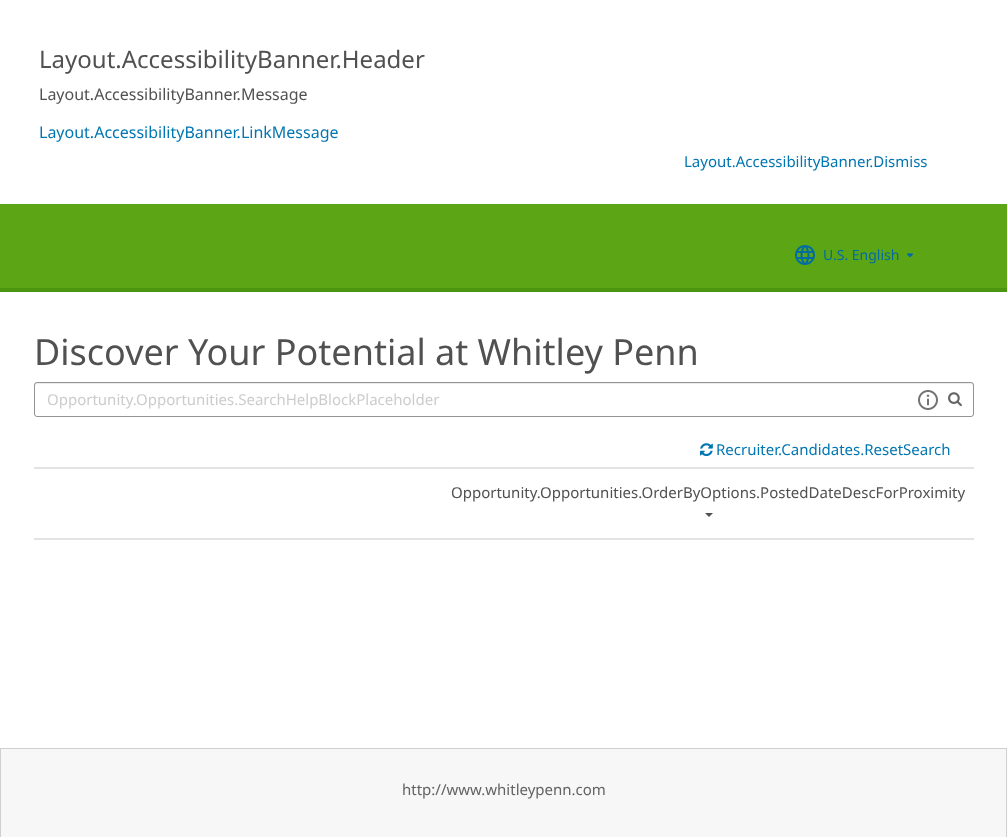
(async () => {
    const canvas = document.querySelector("canvas");
    canvas.width = 1007;
    canvas.height = 838;
    const context = canvas.getContext("2d");
    context.miterLimit = 4;
    context.fontKerning = "normal";
    function write(s, x, y, font, color) {
        context.font = font;
        context.fillStyle = color;
        context.fillText(s, x, y);
    }
    function block(x, y, w, h, color) {
        context.fillStyle = color;
        context.fillRect(x, y, w, h);
    }
    async function photo(src, x, y, w, h) {
        const img = new Image();
        img.src = src;
        await img.decode();
        context.drawImage(img, x, y, w, h);
    }

    block(0, 0, 1007, 838, "rgb(255, 255, 255)");
    write("Layout.AccessibilityBanner.Header", 39, 68, "24px Noto Sans", "rgb(81, 81, 81)");
    write("Layout.AccessibilityBanner.Message", 39, 100, "16px Noto Sans", "rgb(81, 81, 81)");
    write("Layout.AccessibilityBanner.LinkMessage", 39, 138, "16px Noto Sans", "rgb(1, 118, 178)");
    write("Layout.AccessibilityBanner.Dismiss", 684, 167, "15px Noto Sans", "rgb(1, 118, 178)");
    block(0, 204, 1007, 84, "rgb(92, 166, 22)");
    block(0, 288, 1007, 4, "rgb(75, 149, 16)");
    await photo("media/1.png", 795, 245, 20, 20);
    write("U.S. English", 823, 260, "14px Noto Sans", "rgb(1, 108, 162)");
    await photo("media/2.png", 907, 253, 6, 5);
    write("Discover Your Potential at Whitley Penn", 34, 365, "36px Noto Sans", "rgb(81, 81, 81)");
    context.fillStyle = "rgb(236, 236, 236)";
    context.beginPath();
    context.moveTo(37, 384);
    context.lineTo(971, 384);
    context.bezierCurveTo(972, 384, 973, 385, 973, 386);
    context.lineTo(973, 385);
    context.bezierCurveTo(973, 384, 972, 383, 971, 383);
    context.lineTo(37, 383);
    context.bezierCurveTo(36, 383, 35, 384, 35, 385);
    context.lineTo(35, 386);
    context.bezierCurveTo(35, 385, 36, 384, 37, 384);
    context.closePath();
    context.fill();
    context.beginPath();
    context.roundRect(34.5, 382.5, 939, 34, 2.5);
    context.strokeStyle = "rgba(0, 0, 0, 0.42)";
    context.stroke();
    write("Opportunity.Opportunities.SearchHelpBlockPlaceholder", 47, 405, "15px Noto Sans", "rgb(204, 204, 204)");
    await photo("media/3.png", 918, 390, 20, 20);
    await photo("media/4.png", 948, 392, 14, 15);
    await photo("media/5.png", 700, 443, 13, 14);
    write("Recruiter.Candidates.ResetSearch", 716, 455, "15px Noto Sans", "rgb(1, 118, 178)");
    block(34, 467, 940, 2, "rgb(227, 227, 227)");
    block(34, 538, 940, 2, "rgb(227, 227, 227)");
    write("Opportunity.Opportunities.OrderByOptions.PostedDateDescForProximity", 451, 498, "15px Noto Sans", "rgb(81, 81, 81)");
    context.beginPath();
    context.moveTo(705, 513);
    context.lineTo(713, 513);
    context.lineTo(709, 517);
    context.closePath();
    context.fill();
    block(1, 749, 1005, 88, "rgb(247, 247, 247)");
    block(0, 748, 1007, 1, "rgb(207, 207, 207)");
    block(1006, 748, 1, 89, "rgb(207, 207, 207)");
    block(0, 748, 1, 89, "rgb(207, 207, 207)");
    write("http://www.whitleypenn.com", 402, 795, "15px Noto Sans", "rgb(99, 99, 99)");
})();
